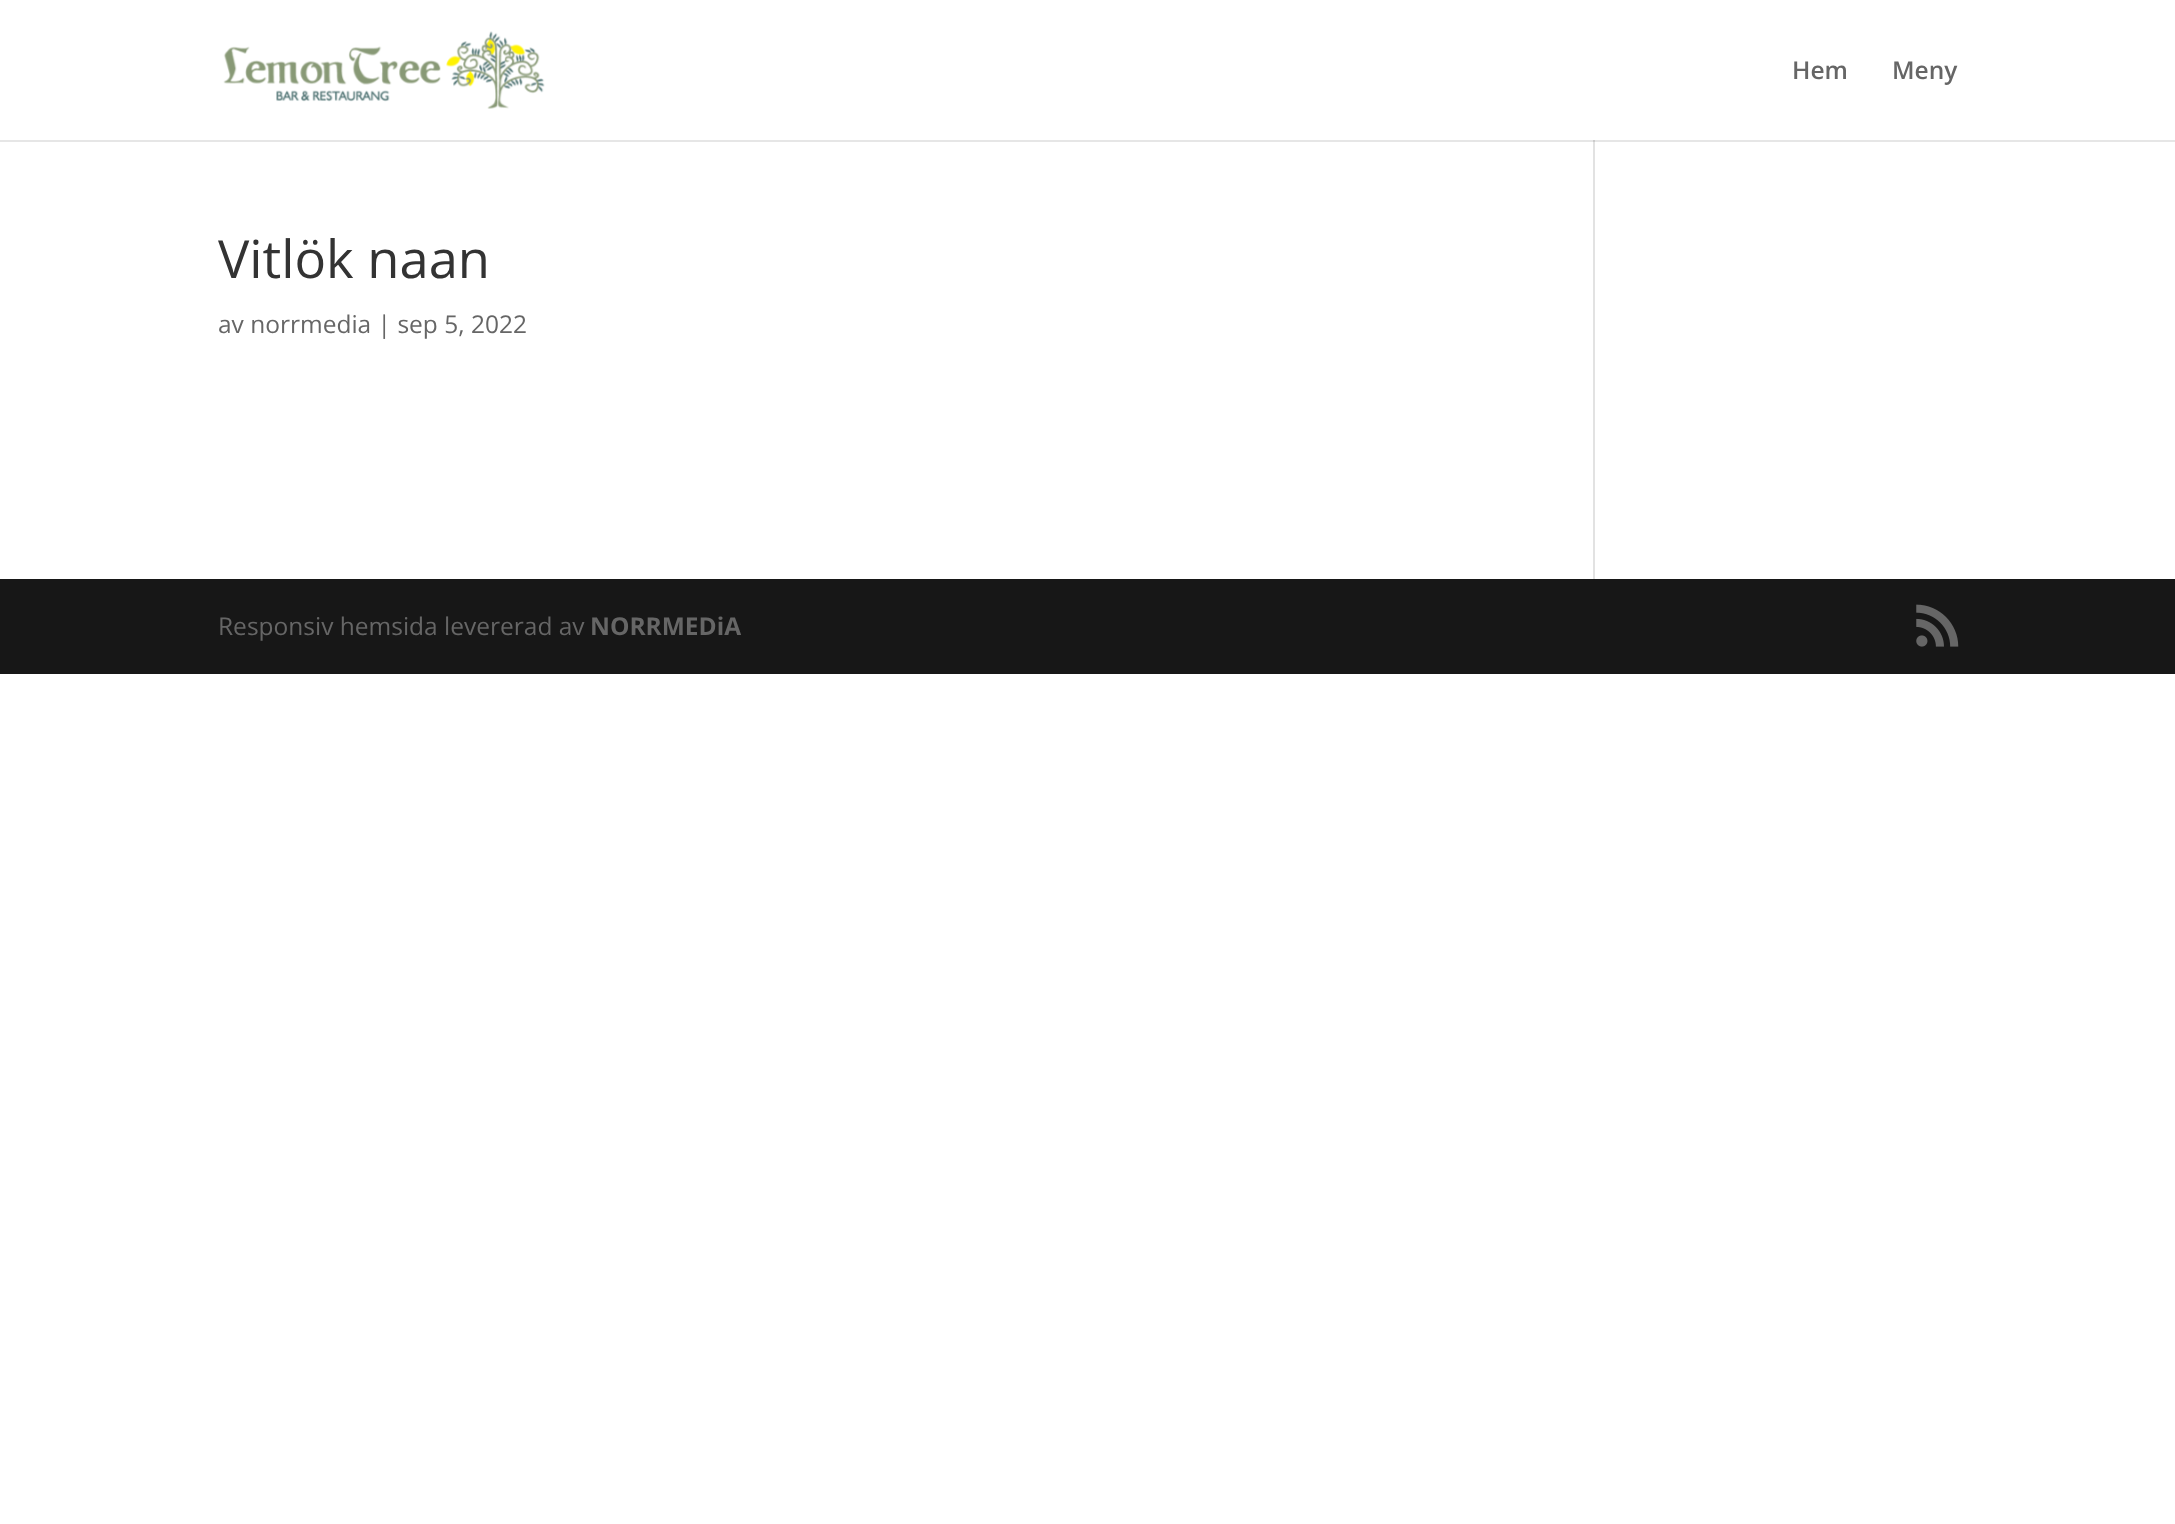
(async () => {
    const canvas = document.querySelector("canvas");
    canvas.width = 2175;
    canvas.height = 1524;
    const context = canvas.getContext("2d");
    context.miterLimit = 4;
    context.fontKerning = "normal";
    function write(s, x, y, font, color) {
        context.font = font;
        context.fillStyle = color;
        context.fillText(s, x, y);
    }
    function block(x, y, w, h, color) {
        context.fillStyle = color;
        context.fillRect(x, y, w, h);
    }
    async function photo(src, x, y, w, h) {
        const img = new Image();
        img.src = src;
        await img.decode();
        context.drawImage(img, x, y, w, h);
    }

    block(0, 0, 2175, 1524, "rgb(255, 255, 255)");
    block(0, 140, 2175, 2, "rgb(230, 230, 230)");
    await photo("media/1.png", 223, 31, 322, 78);
    write("Hem", 1792, 79, "600 24.5px Open Sans", "rgb(102, 102, 102)");
    write("Meny", 1892, 79, "600 24.5px Open Sans", "rgb(102, 102, 102)");
    write("Vitlök naan", 218, 278, "52.5px Open Sans", "rgb(51, 51, 51)");
    write("av norrmedia | sep 5, 2022", 218, 333, "24.5px Open Sans", "rgb(102, 102, 102)");
    block(1593, 142, 2, 437, "rgb(226, 226, 226)");
    block(1593, 140, 2, 2, "rgb(203, 203, 203)");
    block(0, 579, 2175, 95, "rgb(23, 23, 23)");
    write("Responsiv hemsida levererad av", 218, 635, "24.5px Open Sans", "rgb(102, 102, 102)");
    write("NORRMEDiA", 590, 635, "bold 24.5px Open Sans", "rgb(102, 102, 102)");
    await photo("media/2.png", 1916, 604, 43, 43);
})();
